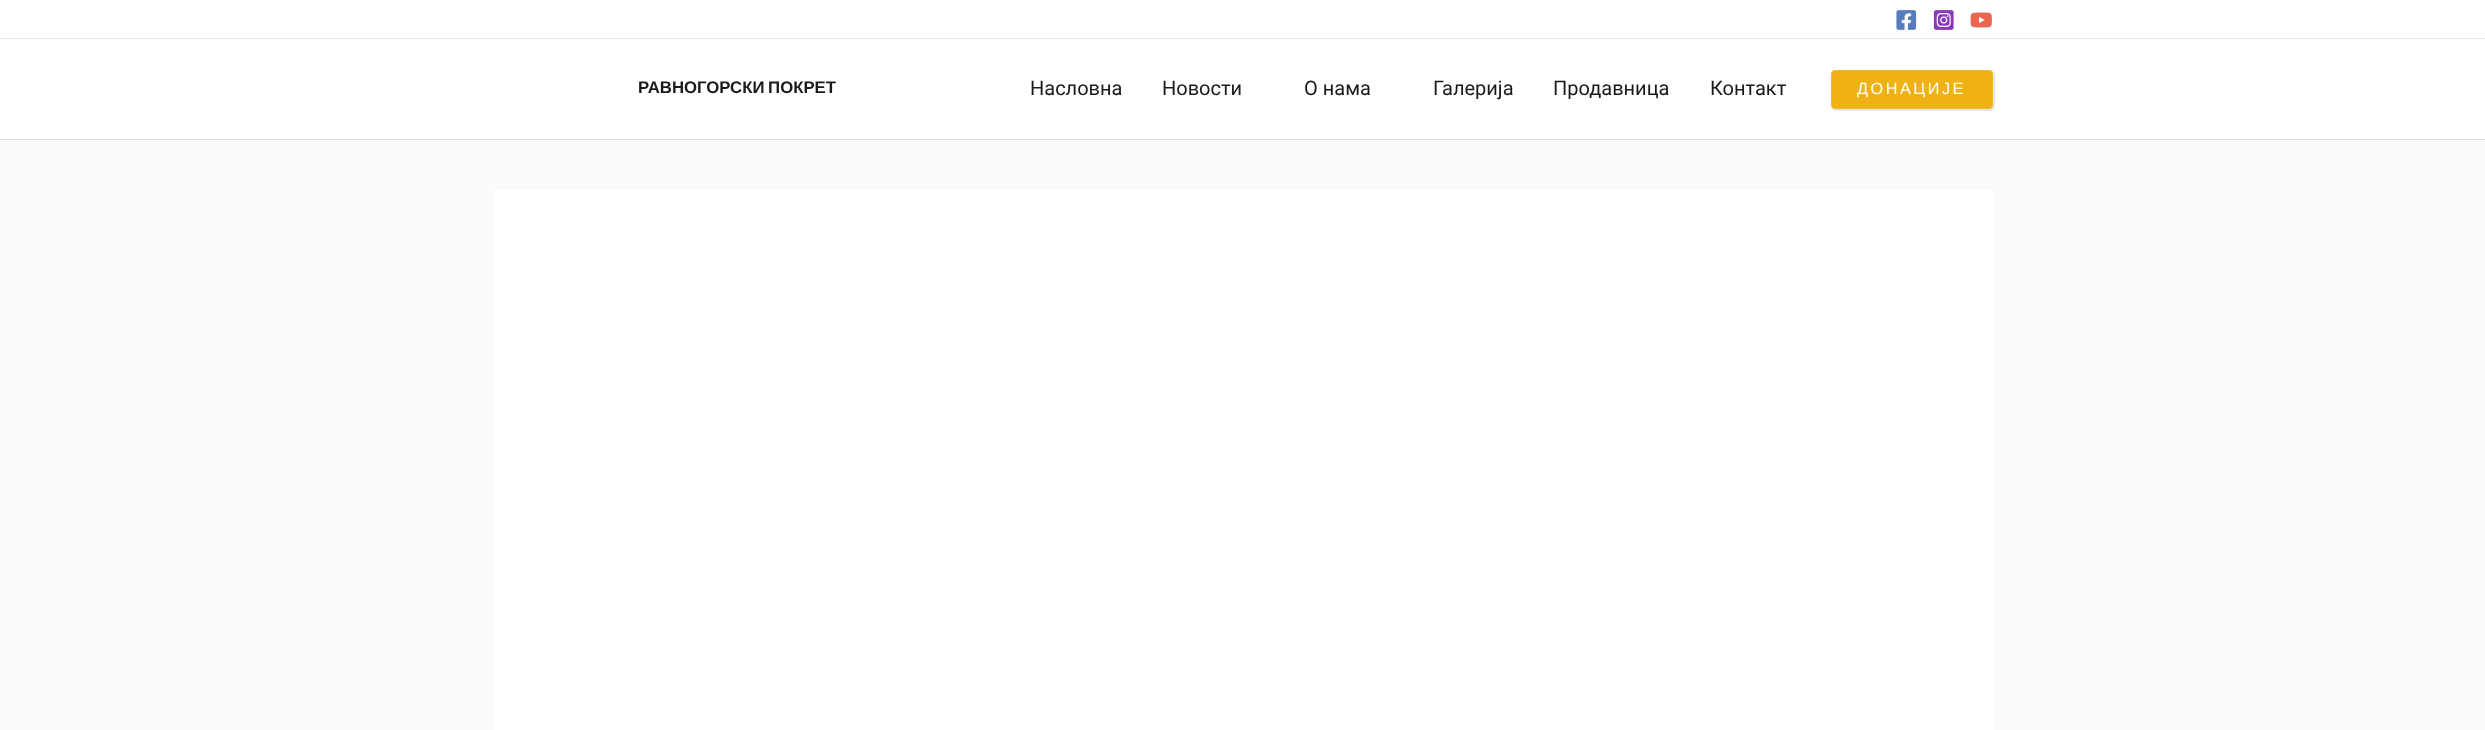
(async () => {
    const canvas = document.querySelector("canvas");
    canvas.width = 2485;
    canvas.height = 730;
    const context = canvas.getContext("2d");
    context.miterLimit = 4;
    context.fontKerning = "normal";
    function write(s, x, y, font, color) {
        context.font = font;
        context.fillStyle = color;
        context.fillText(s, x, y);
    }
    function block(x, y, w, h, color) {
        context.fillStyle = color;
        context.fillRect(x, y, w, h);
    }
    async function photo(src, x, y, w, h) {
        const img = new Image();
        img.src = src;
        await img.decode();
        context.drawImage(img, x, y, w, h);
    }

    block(0, 0, 2485, 730, "rgb(250, 250, 250)");
    block(0, 0, 2485, 38, "rgb(255, 255, 255)");
    block(0, 38, 2485, 1, "rgb(234, 234, 234)");
    await photo("media/1.png", 1896, 10, 21, 20);
    await photo("media/2.png", 1933, 10, 21, 20);
    await photo("media/3.png", 1970, 12, 22, 16);
    block(0, 39, 2485, 100, "rgb(255, 255, 255)");
    block(0, 139, 2485, 1, "rgb(221, 221, 221)");
    context.wordSpacing = "-1px";
    write("РАВНОГОРСКИ ПОКРЕТ", 638, 93, "bold 16.75px Liberation Sans", "rgb(26, 26, 26)");
    context.wordSpacing = "0px";
    write("Насловна", 1030, 95, "20px Roboto", "rgb(26, 26, 26)");
    write("Новости", 1162, 95, "20px Roboto", "rgb(26, 26, 26)");
    write("О нама", 1304, 95, "20px Roboto", "rgb(26, 26, 26)");
    write("Галерија", 1433, 95, "20px Roboto", "rgb(26, 26, 26)");
    write("Продавница", 1553, 95, "20px Roboto", "rgb(26, 26, 26)");
    write("Контакт", 1710, 95, "20px Roboto", "rgb(26, 26, 26)");
    context.fillStyle = "rgba(0, 0, 0, 0.1)";
    context.filter = "blur(0.5px)";
    context.beginPath();
    context.roundRect(1831, 70, 164, 41, 5);
    context.fill();
    context.filter = "none";
    context.fillStyle = "rgb(239, 177, 20)";
    context.beginPath();
    context.roundRect(1831.5, 70.5, 161, 38, 3.5);
    context.fill();
    context.strokeStyle = "rgb(237, 185, 50)";
    context.stroke();
    context.letterSpacing = "2.5px";
    write("ДОНАЦИЈЕ", 1857, 94, "16.25px Liberation Sans", "rgb(255, 255, 255)");
    block(493, 190, 1500, 540, "rgb(255, 255, 255)");
})();
